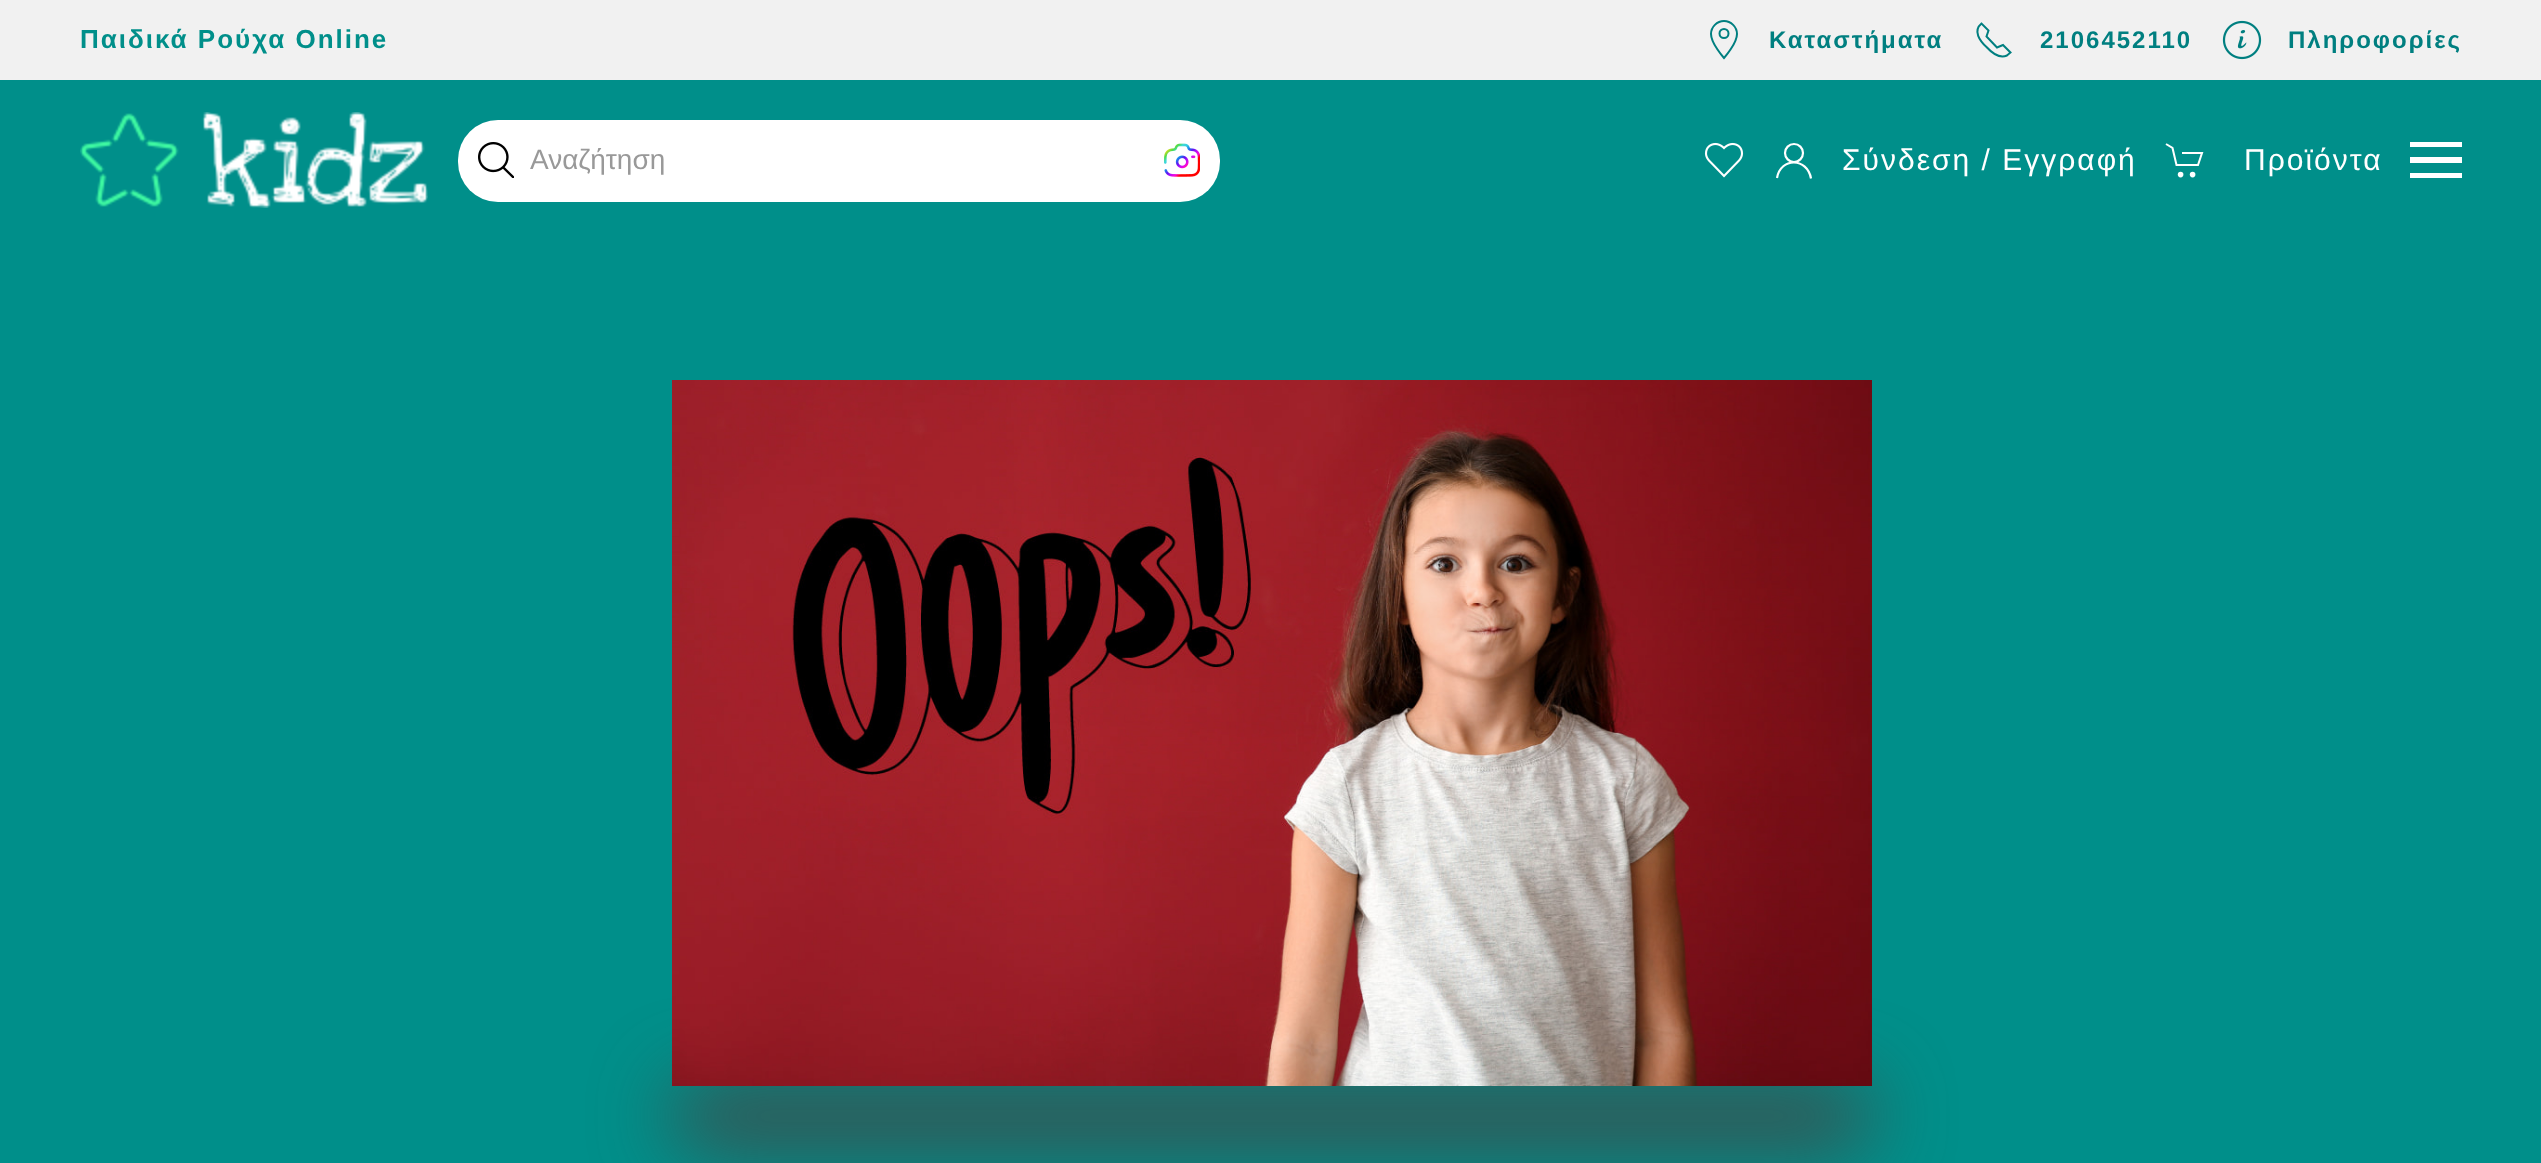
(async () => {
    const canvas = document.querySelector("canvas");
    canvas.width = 2541;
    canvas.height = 1163;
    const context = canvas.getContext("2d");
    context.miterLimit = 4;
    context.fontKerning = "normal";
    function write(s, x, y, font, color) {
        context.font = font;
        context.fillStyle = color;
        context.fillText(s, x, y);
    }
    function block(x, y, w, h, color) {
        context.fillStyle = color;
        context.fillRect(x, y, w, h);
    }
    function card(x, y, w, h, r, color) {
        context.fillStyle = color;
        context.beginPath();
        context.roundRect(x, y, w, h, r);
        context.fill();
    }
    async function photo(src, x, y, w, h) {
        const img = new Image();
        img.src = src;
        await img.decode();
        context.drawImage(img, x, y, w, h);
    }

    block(0, 0, 2541, 1163, "rgb(0, 143, 138)");
    block(0, 0, 2541, 80, "rgb(241, 241, 241)");
    context.letterSpacing = "2px";
    write("Παιδικά Ρούχα Online", 80, 48, "bold 26px Liberation Sans", "rgb(0, 143, 138)");
    context.beginPath();
    context.moveTo(1724, 21);
    context.bezierCurveTo(1717, 21, 1711, 27, 1711, 34);
    context.bezierCurveTo(1711, 43.5, 1724, 58, 1724, 58);
    context.bezierCurveTo(1724, 58, 1737, 43.5, 1737, 34);
    context.bezierCurveTo(1737, 27, 1731, 21, 1724, 21);
    context.closePath();
    context.strokeStyle = "rgb(0, 127, 128)";
    context.lineWidth = 2;
    context.stroke();
    context.beginPath();
    context.arc(1724, 33.5, 4.5, 0, Math.PI * 2);
    context.stroke();
    write("Καταστήματα", 1769, 48, "bold 24px Liberation Sans", "rgb(0, 127, 128)");
    context.beginPath();
    context.moveTo(1986.5, 47);
    context.bezierCurveTo(1991.5, 52.5, 1999, 59, 2007, 55.5);
    context.lineTo(2010.5, 52.5);
    context.lineTo(2003, 45);
    context.lineTo(1997, 47.5);
    context.lineTo(1986.5, 36.5);
    context.lineTo(1988.5, 30.5);
    context.lineTo(1981.5, 23.5);
    context.bezierCurveTo(1972.5, 31, 1980, 41, 1986.5, 47);
    context.stroke();
    write("2106452110", 2040, 48, "bold 24px Liberation Sans", "rgb(0, 127, 128)");
    await photo("media/1.png", 2222, 20, 40, 40);
    write("Πληροφορίες", 2288, 48, "bold 24px Liberation Sans", "rgb(0, 127, 128)");
    await photo("media/2.png", 80, 112, 348, 96);
    card(458, 120, 762, 82, 40, "rgb(255, 255, 255)");
    await photo("media/3.png", 478, 142, 36, 36);
    context.letterSpacing = "0px";
    write("Αναζήτηση", 530, 169, "28px Liberation Sans", "rgb(153, 153, 153)");
    await photo("media/4.png", 1164, 143, 36, 34);
    await photo("media/5.png", 1704, 142, 40, 36);
    context.beginPath();
    context.arc(1794, 153, 9, 0, Math.PI * 2);
    context.strokeStyle = "rgb(255, 255, 255)";
    context.lineWidth = 2.2;
    context.stroke();
    context.beginPath();
    context.moveTo(1777, 178);
    context.bezierCurveTo(1780.5, 157, 1807.5, 157.5, 1811, 178.5);
    context.stroke();
    context.letterSpacing = "2px";
    write("Σύνδεση / Εγγραφή", 1842, 170, "30px Liberation Sans", "rgb(255, 255, 255)");
    context.beginPath();
    context.moveTo(2166, 144);
    context.lineTo(2172.5, 148);
    context.lineTo(2176.5, 165);
    context.lineTo(2198, 165);
    context.lineTo(2202, 153);
    context.lineTo(2182, 153);
    context.lineWidth = 2;
    context.stroke();
    context.beginPath();
    context.arc(2180.6, 174.6, 2.8, 0, Math.PI * 2);
    context.fill();
    context.beginPath();
    context.arc(2192.6, 174.6, 2.8, 0, Math.PI * 2);
    context.fill();
    write("Προϊόντα", 2244, 170, "30px Liberation Sans", "rgb(255, 255, 255)");
    block(2410, 142, 52, 5, "rgb(255, 255, 255)");
    block(2410, 157, 52, 6, "rgb(255, 255, 255)");
    block(2410, 173, 52, 5, "rgb(255, 255, 255)");
    context.fillStyle = "rgb(68, 68, 68)";
    context.filter = "blur(40px)";
    context.beginPath();
    context.roundRect(672, 1086, 1200, 60, 30);
    context.fill();
    context.filter = "none";
    await photo("media/6.png", 672, 380, 1200, 706);
})();
